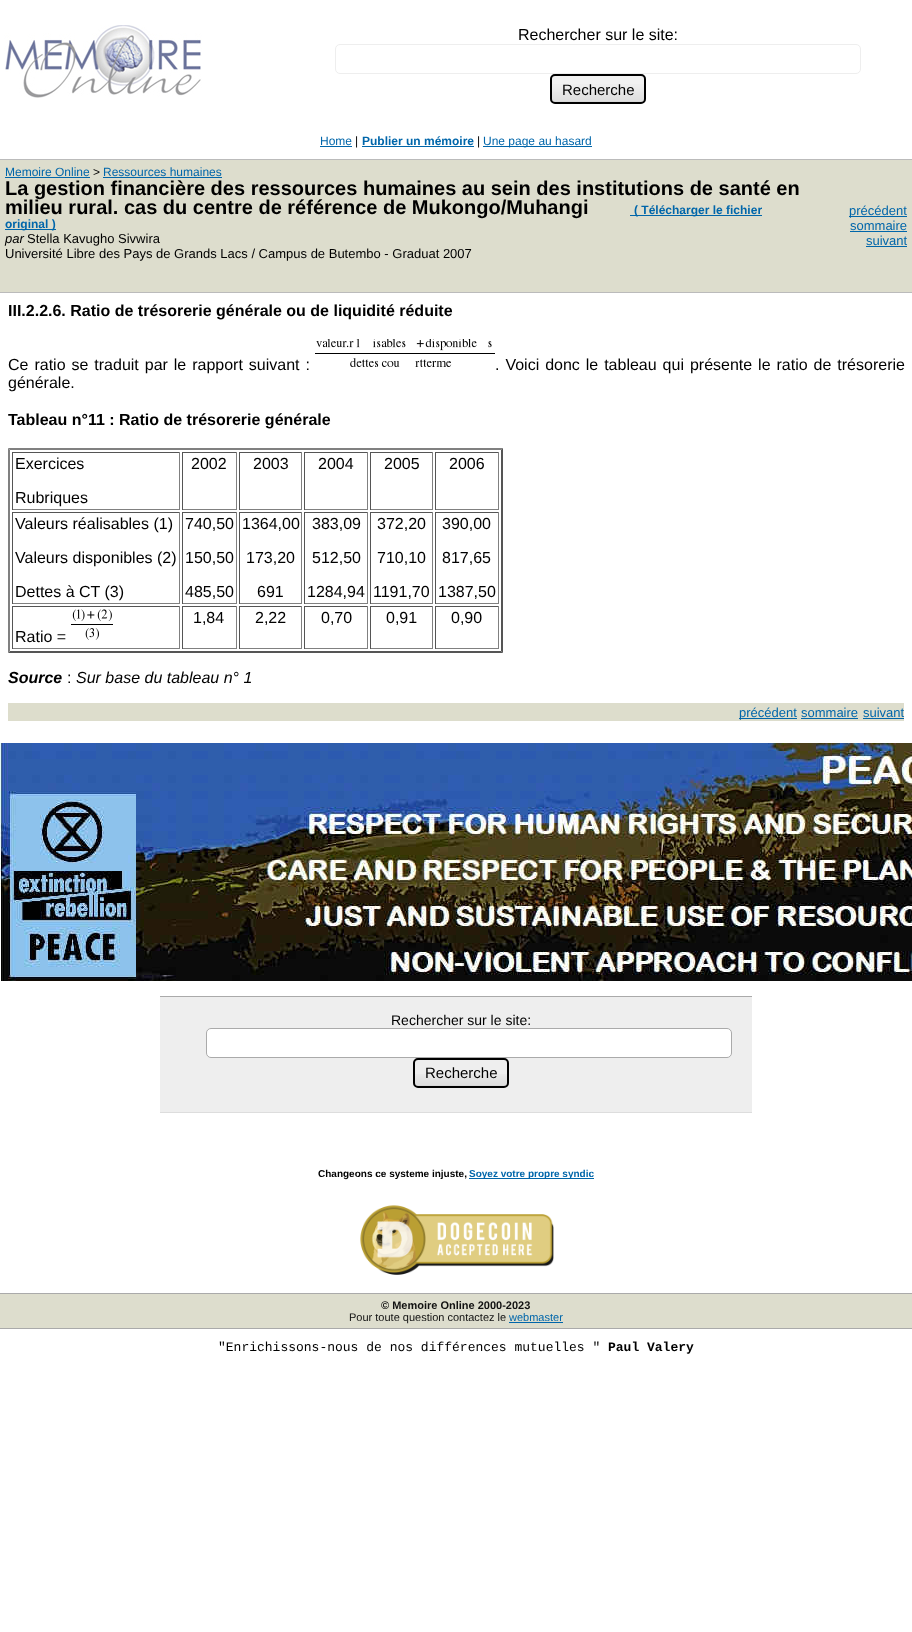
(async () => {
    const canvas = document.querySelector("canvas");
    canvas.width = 912;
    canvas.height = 1632;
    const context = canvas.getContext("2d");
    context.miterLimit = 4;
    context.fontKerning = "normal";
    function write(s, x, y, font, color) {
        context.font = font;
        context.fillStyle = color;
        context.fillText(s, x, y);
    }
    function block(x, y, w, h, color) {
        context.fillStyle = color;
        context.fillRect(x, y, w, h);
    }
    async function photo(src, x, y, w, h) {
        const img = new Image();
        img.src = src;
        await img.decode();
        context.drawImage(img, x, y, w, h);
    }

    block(0, 0, 912, 1632, "rgb(255, 255, 255)");
    await photo("media/1.png", 4, 25, 198, 73);
    write("Rechercher sur le site:", 518, 40, "16px Liberation Sans", "rgb(0, 0, 0)");
    context.beginPath();
    context.roundRect(335.5, 44.5, 525, 29, 4.5);
    context.strokeStyle = "rgb(238, 238, 238)";
    context.stroke();
    await photo("media/2.png", 550, 74, 96, 30);
    context.beginPath();
    context.roundRect(551, 75, 94, 28, 4);
    context.strokeStyle = "rgb(0, 0, 0)";
    context.lineWidth = 2;
    context.stroke();
    write("Recherche", 562, 95, "15px Liberation Sans", "rgb(0, 0, 0)");
    write("Home", 320, 145, "12px Liberation Sans", "rgb(0, 102, 170)");
    block(320, 146, 32, 1, "rgb(0, 102, 170)");
    write("|", 355, 145, "12px Liberation Sans", "rgb(0, 0, 0)");
    write("Publier un mémoire", 362, 145, "bold 12px Liberation Sans", "rgb(0, 102, 170)");
    block(362, 146, 112, 1, "rgb(0, 102, 170)");
    write("|", 477, 145, "12px Liberation Sans", "rgb(0, 0, 0)");
    block(483, 146, 109, 1, "rgb(0, 102, 170)");
    write("Une page au hasard", 483, 145, "12px Liberation Sans", "rgb(0, 102, 170)");
    block(0, 160, 912, 132, "rgb(221, 221, 205)");
    block(0, 159, 912, 1, "rgb(187, 187, 187)");
    block(0, 292, 912, 1, "rgb(187, 187, 187)");
    write("Memoire Online", 5, 176, "12px Liberation Sans", "rgb(0, 102, 170)");
    block(5, 177, 85, 1, "rgb(0, 102, 170)");
    write(">", 93, 176, "12px Liberation Sans", "rgb(0, 0, 0)");
    write("Ressources humaines", 103, 176, "12px Liberation Sans", "rgb(0, 102, 170)");
    block(103, 177, 119, 1, "rgb(0, 102, 170)");
    write("La gestion financière des ressources humaines au sein des institutions de santé en", 5, 195, "bold 20px Liberation Sans", "rgb(0, 0, 0)");
    write("milieu rural. cas du centre de référence de Mukongo/Muhangi", 5, 214, "bold 20px Liberation Sans", "rgb(0, 0, 0)");
    block(630, 215, 132, 1, "rgb(0, 102, 170)");
    write("( Télécharger le fichier", 634, 214, "bold 12px Liberation Sans", "rgb(0, 102, 170)");
    block(5, 229, 51, 1, "rgb(0, 102, 170)");
    write("original )", 5, 228, "bold 12px Liberation Sans", "rgb(0, 102, 170)");
    write("par", 5, 243, "italic 13px Liberation Sans", "rgb(0, 0, 0)");
    write("Stella Kavugho Sivwira", 27, 243, "13px Liberation Sans", "rgb(0, 0, 0)");
    write("Université Libre des Pays de Grands Lacs / Campus de Butembo - Graduat 2007", 5, 258, "13px Liberation Sans", "rgb(0, 0, 0)");
    block(849, 216, 58, 1, "rgb(0, 102, 170)");
    write("précédent", 849, 215, "13px Liberation Sans", "rgb(0, 102, 170)");
    write("sommaire", 850, 230, "13px Liberation Sans", "rgb(0, 102, 170)");
    block(850, 231, 57, 1, "rgb(0, 102, 170)");
    write("suivant", 866, 245, "13px Liberation Sans", "rgb(0, 102, 170)");
    block(866, 246, 41, 1, "rgb(0, 102, 170)");
    write("III.2.2.6. Ratio de trésorerie générale ou de liquidité réduite", 8, 316, "bold 16px Liberation Sans", "rgb(0, 0, 0)");
    context.wordSpacing = "1.5px";
    write("Ce ratio se traduit par le rapport suivant :", 8, 370, "16px Liberation Sans", "rgb(0, 0, 0)");
    await photo("media/3.png", 315, 339, 180, 28);
    write(". Voici donc le tableau qui présente le ratio de trésorerie", 495, 370, "16px Liberation Sans", "rgb(0, 0, 0)");
    context.wordSpacing = "0px";
    write("générale.", 8, 388, "16px Liberation Sans", "rgb(0, 0, 0)");
    write("Tableau n°11 : Ratio de trésorerie générale", 8, 425, "bold 16px Liberation Sans", "rgb(0, 0, 0)");
    context.fillStyle = "rgb(128, 128, 128)";
    context.beginPath();
    context.moveTo(8, 448);
    context.lineTo(503, 448);
    context.lineTo(501, 450);
    context.lineTo(10, 450);
    context.closePath();
    context.fill();
    context.fillStyle = "rgb(85, 85, 85)";
    context.beginPath();
    context.moveTo(503, 448);
    context.lineTo(503, 653);
    context.lineTo(501, 651);
    context.lineTo(501, 450);
    context.closePath();
    context.fill();
    context.beginPath();
    context.moveTo(503, 653);
    context.lineTo(8, 653);
    context.lineTo(10, 651);
    context.lineTo(501, 651);
    context.closePath();
    context.fill();
    context.fillStyle = "rgb(128, 128, 128)";
    context.beginPath();
    context.moveTo(8, 653);
    context.lineTo(8, 448);
    context.lineTo(10, 450);
    context.lineTo(10, 651);
    context.closePath();
    context.fill();
    block(12, 452, 168, 1, "rgb(85, 85, 85)");
    block(179, 452, 1, 58, "rgb(128, 128, 128)");
    block(12, 509, 168, 1, "rgb(128, 128, 128)");
    block(12, 452, 1, 58, "rgb(85, 85, 85)");
    write("Exercices", 15, 469, "16px Liberation Sans", "rgb(0, 0, 0)");
    write("Rubriques", 15, 503, "16px Liberation Sans", "rgb(0, 0, 0)");
    block(182, 452, 55, 1, "rgb(85, 85, 85)");
    block(236, 452, 1, 58, "rgb(128, 128, 128)");
    block(182, 509, 55, 1, "rgb(128, 128, 128)");
    block(182, 452, 1, 58, "rgb(85, 85, 85)");
    write("2002", 191, 469, "16px Liberation Sans", "rgb(0, 0, 0)");
    block(239, 452, 63, 1, "rgb(85, 85, 85)");
    block(301, 452, 1, 58, "rgb(128, 128, 128)");
    block(239, 509, 63, 1, "rgb(128, 128, 128)");
    block(239, 452, 1, 58, "rgb(85, 85, 85)");
    write("2003", 253, 469, "16px Liberation Sans", "rgb(0, 0, 0)");
    block(304, 452, 64, 1, "rgb(85, 85, 85)");
    block(367, 452, 1, 58, "rgb(128, 128, 128)");
    block(304, 509, 64, 1, "rgb(128, 128, 128)");
    block(304, 452, 1, 58, "rgb(85, 85, 85)");
    write("2004", 318, 469, "16px Liberation Sans", "rgb(0, 0, 0)");
    block(370, 452, 63, 1, "rgb(85, 85, 85)");
    block(432, 452, 1, 58, "rgb(128, 128, 128)");
    block(370, 509, 63, 1, "rgb(128, 128, 128)");
    block(370, 452, 1, 58, "rgb(85, 85, 85)");
    write("2005", 384, 469, "16px Liberation Sans", "rgb(0, 0, 0)");
    block(435, 452, 64, 1, "rgb(85, 85, 85)");
    block(498, 452, 1, 58, "rgb(128, 128, 128)");
    block(435, 509, 64, 1, "rgb(128, 128, 128)");
    block(435, 452, 1, 58, "rgb(85, 85, 85)");
    write("2006", 449, 469, "16px Liberation Sans", "rgb(0, 0, 0)");
    block(12, 512, 168, 1, "rgb(85, 85, 85)");
    block(179, 512, 1, 92, "rgb(128, 128, 128)");
    block(12, 603, 168, 1, "rgb(128, 128, 128)");
    block(12, 512, 1, 92, "rgb(85, 85, 85)");
    write("Valeurs réalisables (1)", 15, 529, "16px Liberation Sans", "rgb(0, 0, 0)");
    write("Valeurs disponibles (2)", 15, 563, "16px Liberation Sans", "rgb(0, 0, 0)");
    write("Dettes à CT (3)", 15, 597, "16px Liberation Sans", "rgb(0, 0, 0)");
    block(182, 512, 55, 1, "rgb(85, 85, 85)");
    block(236, 512, 1, 92, "rgb(128, 128, 128)");
    block(182, 603, 55, 1, "rgb(128, 128, 128)");
    block(182, 512, 1, 92, "rgb(85, 85, 85)");
    write("740,50", 185, 529, "16px Liberation Sans", "rgb(0, 0, 0)");
    write("150,50", 185, 563, "16px Liberation Sans", "rgb(0, 0, 0)");
    write("485,50", 185, 597, "16px Liberation Sans", "rgb(0, 0, 0)");
    block(239, 512, 63, 1, "rgb(85, 85, 85)");
    block(301, 512, 1, 92, "rgb(128, 128, 128)");
    block(239, 603, 63, 1, "rgb(128, 128, 128)");
    block(239, 512, 1, 92, "rgb(85, 85, 85)");
    write("1364,00", 242, 529, "16px Liberation Sans", "rgb(0, 0, 0)");
    write("173,20", 246, 563, "16px Liberation Sans", "rgb(0, 0, 0)");
    write("691", 257, 597, "16px Liberation Sans", "rgb(0, 0, 0)");
    block(304, 512, 64, 1, "rgb(85, 85, 85)");
    block(367, 512, 1, 92, "rgb(128, 128, 128)");
    block(304, 603, 64, 1, "rgb(128, 128, 128)");
    block(304, 512, 1, 92, "rgb(85, 85, 85)");
    write("383,09", 312, 529, "16px Liberation Sans", "rgb(0, 0, 0)");
    write("512,50", 312, 563, "16px Liberation Sans", "rgb(0, 0, 0)");
    write("1284,94", 307, 597, "16px Liberation Sans", "rgb(0, 0, 0)");
    block(370, 512, 63, 1, "rgb(85, 85, 85)");
    block(432, 512, 1, 92, "rgb(128, 128, 128)");
    block(370, 603, 63, 1, "rgb(128, 128, 128)");
    block(370, 512, 1, 92, "rgb(85, 85, 85)");
    write("372,20", 377, 529, "16px Liberation Sans", "rgb(0, 0, 0)");
    write("710,10", 377, 563, "16px Liberation Sans", "rgb(0, 0, 0)");
    write("1191,70", 373, 597, "16px Liberation Sans", "rgb(0, 0, 0)");
    block(435, 512, 64, 1, "rgb(85, 85, 85)");
    block(498, 512, 1, 92, "rgb(128, 128, 128)");
    block(435, 603, 64, 1, "rgb(128, 128, 128)");
    block(435, 512, 1, 92, "rgb(85, 85, 85)");
    write("390,00", 442, 529, "16px Liberation Sans", "rgb(0, 0, 0)");
    write("817,65", 442, 563, "16px Liberation Sans", "rgb(0, 0, 0)");
    write("1387,50", 438, 597, "16px Liberation Sans", "rgb(0, 0, 0)");
    block(182, 606, 55, 1, "rgb(85, 85, 85)");
    block(236, 606, 1, 43, "rgb(128, 128, 128)");
    block(182, 648, 55, 1, "rgb(128, 128, 128)");
    block(182, 606, 1, 43, "rgb(85, 85, 85)");
    write("1,84", 193, 623, "16px Liberation Sans", "rgb(0, 0, 0)");
    block(239, 606, 63, 1, "rgb(85, 85, 85)");
    block(301, 606, 1, 43, "rgb(128, 128, 128)");
    block(239, 648, 63, 1, "rgb(128, 128, 128)");
    block(239, 606, 1, 43, "rgb(85, 85, 85)");
    write("2,22", 255, 623, "16px Liberation Sans", "rgb(0, 0, 0)");
    block(304, 606, 64, 1, "rgb(85, 85, 85)");
    block(367, 606, 1, 43, "rgb(128, 128, 128)");
    block(304, 648, 64, 1, "rgb(128, 128, 128)");
    block(304, 606, 1, 43, "rgb(85, 85, 85)");
    write("0,70", 321, 623, "16px Liberation Sans", "rgb(0, 0, 0)");
    block(370, 606, 63, 1, "rgb(85, 85, 85)");
    block(432, 606, 1, 43, "rgb(128, 128, 128)");
    block(370, 648, 63, 1, "rgb(128, 128, 128)");
    block(370, 606, 1, 43, "rgb(85, 85, 85)");
    write("0,91", 386, 623, "16px Liberation Sans", "rgb(0, 0, 0)");
    block(435, 606, 64, 1, "rgb(85, 85, 85)");
    block(498, 606, 1, 43, "rgb(128, 128, 128)");
    block(435, 648, 64, 1, "rgb(128, 128, 128)");
    block(435, 606, 1, 43, "rgb(85, 85, 85)");
    write("0,90", 451, 623, "16px Liberation Sans", "rgb(0, 0, 0)");
    block(12, 606, 168, 1, "rgb(85, 85, 85)");
    block(179, 606, 1, 43, "rgb(128, 128, 128)");
    block(12, 648, 168, 1, "rgb(128, 128, 128)");
    block(12, 606, 1, 43, "rgb(85, 85, 85)");
    write("Ratio =", 15, 642, "16px Liberation Sans", "rgb(0, 0, 0)");
    await photo("media/4.png", 71, 609, 42, 31);
    write("Source", 8, 683, "italic bold 16px Liberation Sans", "rgb(0, 0, 0)");
    write(":", 67, 683, "16px Liberation Sans", "rgb(0, 0, 0)");
    write("Sur base du tableau n° 1", 76, 683, "italic 16px Liberation Sans", "rgb(0, 0, 0)");
    block(8, 703, 896, 18, "rgb(221, 221, 204)");
    block(739, 718, 58, 1, "rgb(0, 102, 170)");
    write("précédent", 739, 717, "13px Liberation Sans", "rgb(0, 102, 170)");
    write("sommaire", 801, 717, "13px Liberation Sans", "rgb(0, 102, 170)");
    block(801, 718, 57, 1, "rgb(0, 102, 170)");
    write("suivant", 863, 717, "13px Liberation Sans", "rgb(0, 102, 170)");
    block(863, 718, 41, 1, "rgb(0, 102, 170)");
    await photo("media/5.png", 0, 743, 912, 238);
    block(160, 997, 592, 115, "rgb(238, 238, 238)");
    block(160, 996, 592, 1, "rgb(170, 170, 170)");
    block(160, 1112, 592, 1, "rgb(221, 221, 221)");
    write("Rechercher sur le site:", 391, 1025, "14px Liberation Sans", "rgb(0, 0, 0)");
    context.fillStyle = "rgb(255, 255, 255)";
    context.beginPath();
    context.roundRect(206.5, 1028.5, 525, 29, 4.5);
    context.fill();
    context.strokeStyle = "rgb(170, 170, 170)";
    context.lineWidth = 1;
    context.stroke();
    await photo("media/6.png", 413, 1074, 96, 13);
    context.beginPath();
    context.roundRect(414, 1059, 94, 28, 4);
    context.strokeStyle = "rgb(0, 0, 0)";
    context.lineWidth = 2;
    context.stroke();
    write("Recherche", 425, 1078, "15px Liberation Sans", "rgb(0, 0, 0)");
    write("Changeons ce systeme injuste,", 318, 1177, "bold 10px Liberation Sans", "rgb(0, 0, 0)");
    block(469, 1178, 125, 1, "rgb(0, 102, 170)");
    write("Soyez votre propre syndic", 469, 1177, "bold 10px Liberation Sans", "rgb(0, 102, 170)");
    await photo("media/7.png", 360, 1205, 194, 70);
    block(0, 1294, 912, 34, "rgb(221, 221, 205)");
    block(0, 1293, 912, 1, "rgb(170, 170, 170)");
    block(0, 1328, 912, 1, "rgb(170, 170, 170)");
    write("© Memoire Online 2000-2023", 381, 1309, "bold 11px Liberation Sans", "rgb(17, 17, 17)");
    write("Pour toute question contactez le", 349, 1321, "11px Liberation Sans", "rgb(17, 17, 17)");
    write("webmaster", 509, 1321, "11px Liberation Sans", "rgb(0, 102, 170)");
    block(509, 1322, 54, 1, "rgb(0, 102, 170)");
    write("\"Enrichissons-nous de nos différences mutuelles \"", 218, 1351, "13px Liberation Mono", "rgb(0, 0, 0)");
    write("Paul Valery", 608, 1351, "bold 13px Liberation Mono", "rgb(0, 0, 0)");
})();
